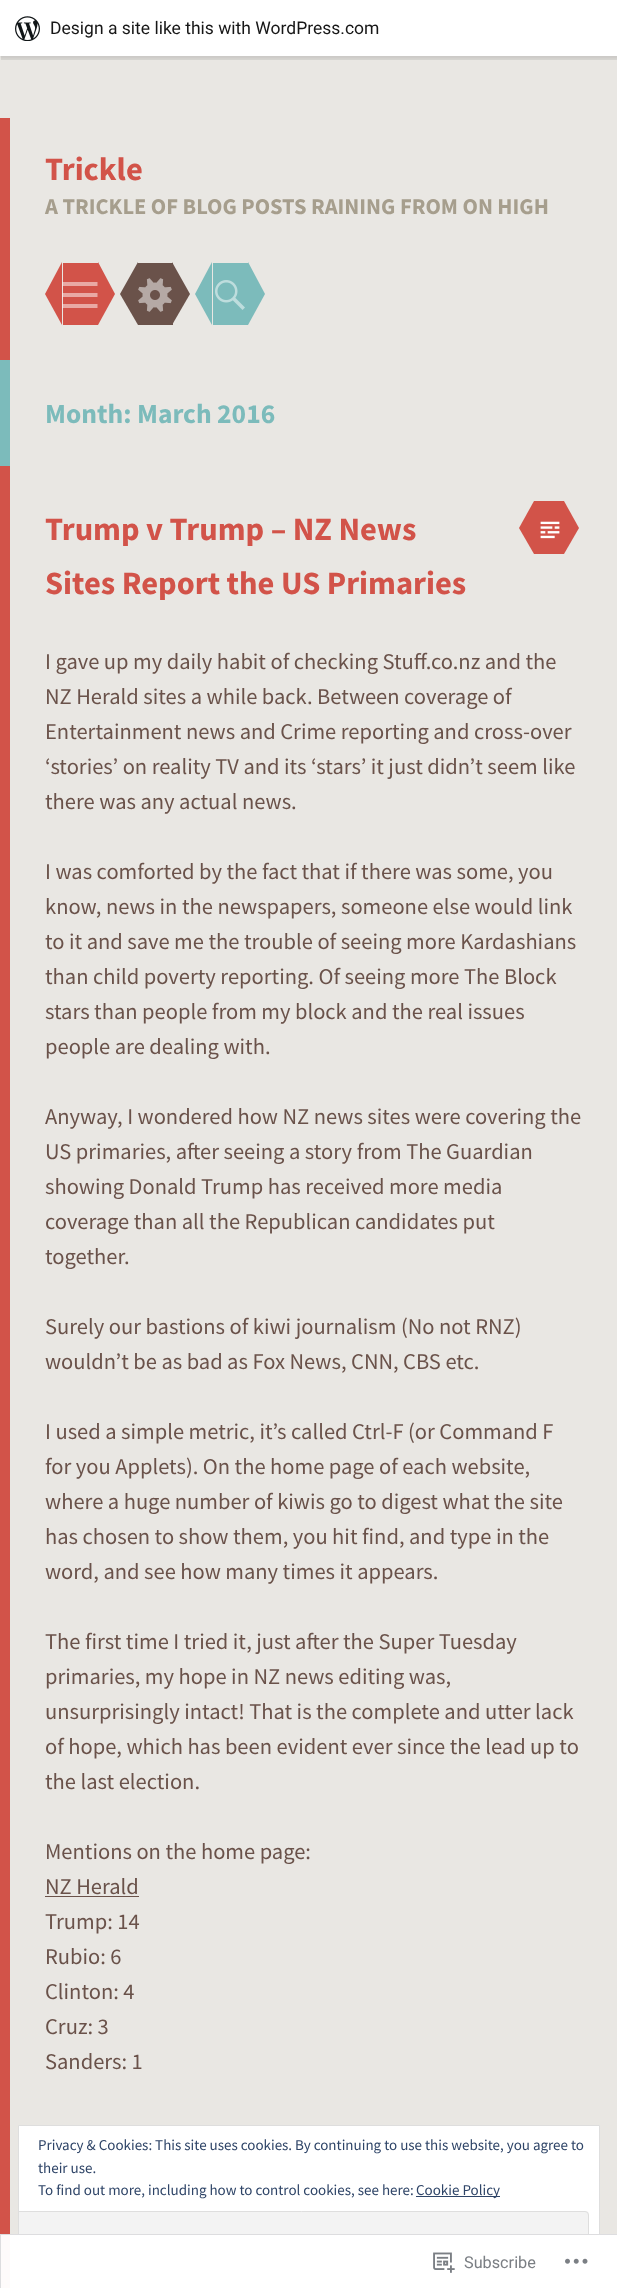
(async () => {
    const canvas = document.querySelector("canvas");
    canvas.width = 617;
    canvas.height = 2288;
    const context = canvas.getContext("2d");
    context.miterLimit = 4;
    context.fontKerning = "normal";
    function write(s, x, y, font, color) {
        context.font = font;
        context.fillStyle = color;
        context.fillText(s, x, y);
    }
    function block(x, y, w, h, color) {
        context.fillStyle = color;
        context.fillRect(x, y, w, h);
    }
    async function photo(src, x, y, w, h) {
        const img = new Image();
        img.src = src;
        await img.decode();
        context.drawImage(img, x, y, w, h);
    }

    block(0, 0, 617, 2288, "rgb(233, 231, 227)");
    context.fillStyle = "rgba(0, 0, 0, 0.05)";
    context.filter = "blur(1px)";
    context.beginPath();
    context.rect(0, 1, 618, 57);
    context.fill();
    context.filter = "none";
    context.fillStyle = "rgba(0, 0, 0, 0.08)";
    context.beginPath();
    context.moveTo(1, 56);
    context.lineTo(1, 60);
    context.lineTo(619, 60);
    context.lineTo(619, 4);
    context.lineTo(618, 4);
    context.lineTo(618, 56);
    context.closePath();
    context.fill();
    block(0, 0, 617, 56, "rgb(255, 255, 255)");
    await photo("media/1.png", 15, 16, 25, 25);
    write("Design a site like this with WordPress.com", 50, 34, "17.5px Roboto", "rgb(23, 23, 23)");
    block(0, 118, 10, 242, "rgb(210, 83, 73)");
    write("Trickle", 45, 180, "bold 32.5px Source Sans Pro", "rgb(210, 83, 73)");
    write("A TRICKLE OF BLOG POSTS RAINING FROM ON HIGH", 45, 214, "bold 22.5px Source Sans Pro", "rgb(166, 158, 141)");
    block(63, 263, 35, 62, "rgb(210, 83, 73)");
    context.beginPath();
    context.moveTo(62, 262);
    context.lineTo(62, 325);
    context.lineTo(45, 294);
    context.closePath();
    context.fill();
    context.fillStyle = "rgba(255, 255, 255, 0.5)";
    context.beginPath();
    context.moveTo(62.5, 308);
    context.lineTo(62.5, 304);
    context.lineTo(97.5, 304);
    context.lineTo(97.5, 308);
    context.closePath();
    context.moveTo(62.5, 282);
    context.lineTo(97.5, 282);
    context.lineTo(97.5, 286);
    context.lineTo(62.5, 286);
    context.closePath();
    context.moveTo(62.5, 297);
    context.lineTo(62.5, 293);
    context.lineTo(97.5, 293);
    context.lineTo(97.5, 297);
    context.closePath();
    context.fill();
    context.fillStyle = "rgb(210, 83, 73)";
    context.beginPath();
    context.moveTo(98, 325);
    context.lineTo(98, 262);
    context.lineTo(115, 294);
    context.closePath();
    context.fill();
    block(138, 263, 35, 62, "rgb(106, 82, 74)");
    context.beginPath();
    context.moveTo(138, 262);
    context.lineTo(138, 325);
    context.lineTo(120, 294);
    context.closePath();
    context.fill();
    await photo("media/2.png", 138, 278, 34, 34);
    context.beginPath();
    context.moveTo(172, 325);
    context.lineTo(172, 262);
    context.lineTo(190, 294);
    context.closePath();
    context.fill();
    block(213, 263, 35, 62, "rgb(124, 187, 187)");
    context.beginPath();
    context.moveTo(212, 262);
    context.lineTo(212, 325);
    context.lineTo(195, 294);
    context.closePath();
    context.fill();
    await photo("media/3.png", 215, 280, 30, 30);
    context.beginPath();
    context.moveTo(248, 325);
    context.lineTo(248, 262);
    context.lineTo(265, 294);
    context.closePath();
    context.fill();
    block(0, 360, 10, 106, "rgb(124, 187, 187)");
    write("Month: March 2016", 45, 423, "bold 27.5px Source Sans Pro", "rgb(124, 187, 187)");
    block(0, 466, 10, 1822, "rgb(210, 83, 73)");
    write("Trump v Trump – NZ News", 45, 540, "bold 32.5px Source Sans Pro", "rgb(210, 83, 73)");
    write("Sites Report the US Primaries", 45, 594, "bold 32.5px Source Sans Pro", "rgb(210, 83, 73)");
    block(534, 501, 30, 53, "rgb(210, 83, 73)");
    context.beginPath();
    context.moveTo(534, 501);
    context.lineTo(534, 554);
    context.lineTo(519, 528);
    context.closePath();
    context.fill();
    await photo("media/4.png", 540, 521, 20, 18);
    context.beginPath();
    context.moveTo(564, 554);
    context.lineTo(564, 501);
    context.lineTo(579, 528);
    context.closePath();
    context.fill();
    write("I gave up my daily habit of checking Stuff.co.nz and the", 45, 669, "22.5px Source Sans Pro", "rgb(106, 82, 74)");
    write("NZ Herald sites a while back. Between coverage of", 45, 704, "22.5px Source Sans Pro", "rgb(106, 82, 74)");
    write("Entertainment news and Crime reporting and cross-over", 45, 739, "22.5px Source Sans Pro", "rgb(106, 82, 74)");
    write("‘stories’ on reality TV and its ‘stars’ it just didn’t seem like", 45, 774, "22.5px Source Sans Pro", "rgb(106, 82, 74)");
    write("there was any actual news.", 45, 809, "22.5px Source Sans Pro", "rgb(106, 82, 74)");
    write("I was comforted by the fact that if there was some, you", 45, 879, "22.5px Source Sans Pro", "rgb(106, 82, 74)");
    write("know, news in the newspapers, someone else would link", 45, 914, "22.5px Source Sans Pro", "rgb(106, 82, 74)");
    write("to it and save me the trouble of seeing more Kardashians", 45, 949, "22.5px Source Sans Pro", "rgb(106, 82, 74)");
    write("than child poverty reporting. Of seeing more The Block", 45, 984, "22.5px Source Sans Pro", "rgb(106, 82, 74)");
    write("stars than people from my block and the real issues", 45, 1019, "22.5px Source Sans Pro", "rgb(106, 82, 74)");
    write("people are dealing with.", 45, 1054, "22.5px Source Sans Pro", "rgb(106, 82, 74)");
    write("Anyway, I wondered how NZ news sites were covering the", 45, 1124, "22.5px Source Sans Pro", "rgb(106, 82, 74)");
    write("US primaries, after seeing a story from The Guardian", 45, 1159, "22.5px Source Sans Pro", "rgb(106, 82, 74)");
    write("showing Donald Trump has received more media", 45, 1194, "22.5px Source Sans Pro", "rgb(106, 82, 74)");
    write("coverage than all the Republican candidates put", 45, 1229, "22.5px Source Sans Pro", "rgb(106, 82, 74)");
    write("together.", 45, 1264, "22.5px Source Sans Pro", "rgb(106, 82, 74)");
    write("Surely our bastions of kiwi journalism (No not RNZ)", 45, 1334, "22.5px Source Sans Pro", "rgb(106, 82, 74)");
    write("wouldn’t be as bad as Fox News, CNN, CBS etc.", 45, 1369, "22.5px Source Sans Pro", "rgb(106, 82, 74)");
    write("I used a simple metric, it’s called Ctrl-F (or Command F", 45, 1439, "22.5px Source Sans Pro", "rgb(106, 82, 74)");
    write("for you Applets). On the home page of each website,", 45, 1474, "22.5px Source Sans Pro", "rgb(106, 82, 74)");
    write("where a huge number of kiwis go to digest what the site", 45, 1509, "22.5px Source Sans Pro", "rgb(106, 82, 74)");
    write("has chosen to show them, you hit find, and type in the", 45, 1544, "22.5px Source Sans Pro", "rgb(106, 82, 74)");
    write("word, and see how many times it appears.", 45, 1579, "22.5px Source Sans Pro", "rgb(106, 82, 74)");
    write("The first time I tried it, just after the Super Tuesday", 45, 1649, "22.5px Source Sans Pro", "rgb(106, 82, 74)");
    write("primaries, my hope in NZ news editing was,", 45, 1684, "22.5px Source Sans Pro", "rgb(106, 82, 74)");
    write("unsurprisingly intact! That is the complete and utter lack", 45, 1719, "22.5px Source Sans Pro", "rgb(106, 82, 74)");
    write("of hope, which has been evident ever since the lead up to", 45, 1754, "22.5px Source Sans Pro", "rgb(106, 82, 74)");
    write("the last election.", 45, 1789, "22.5px Source Sans Pro", "rgb(106, 82, 74)");
    write("Mentions on the home page:", 45, 1859, "22.5px Source Sans Pro", "rgb(106, 82, 74)");
    write("NZ Herald", 45, 1894, "22.5px Source Sans Pro", "rgb(106, 82, 74)");
    block(45, 1896, 94, 1, "rgb(106, 82, 74)");
    write("Trump: 14", 45, 1929, "22.5px Source Sans Pro", "rgb(106, 82, 74)");
    write("Rubio: 6", 45, 1964, "22.5px Source Sans Pro", "rgb(106, 82, 74)");
    write("Clinton: 4", 45, 1999, "22.5px Source Sans Pro", "rgb(106, 82, 74)");
    write("Cruz: 3", 45, 2034, "22.5px Source Sans Pro", "rgb(106, 82, 74)");
    write("Sanders: 1", 45, 2069, "22.5px Source Sans Pro", "rgb(106, 82, 74)");
    context.fillStyle = "rgb(255, 255, 255)";
    context.beginPath();
    context.rect(18.5, 2125.5, 581, 145);
    context.fill();
    context.strokeStyle = "rgb(222, 222, 222)";
    context.stroke();
    write("Privacy & Cookies: This site uses cookies. By continuing to use this website, you agree to", 38, 2150, "15px Source Sans Pro", "rgb(46, 68, 103)");
    write("their use.", 38, 2173, "15px Source Sans Pro", "rgb(46, 68, 103)");
    write("To find out more, including how to control cookies, see here:", 38, 2195, "15px Source Sans Pro", "rgb(46, 68, 103)");
    block(416, 2196, 84, 1, "rgb(46, 68, 103)");
    write("Cookie Policy", 416, 2195, "15px Source Sans Pro", "rgb(46, 68, 103)");
    context.fillStyle = "rgb(243, 243, 243)";
    context.beginPath();
    context.roundRect(19, 2211, 570, 49, [0, 4, 4, 0]);
    context.fill();
    context.save();
    context.beginPath();
    context.rect(19, 2126, 580, 144);
    context.clip();
    context.beginPath();
    context.roundRect(9.5, 2211.5, 579, 48, 3.5);
    context.stroke();
    context.restore();
    block(0, 2234, 617, 54, "rgba(255, 255, 255, 0.98)");
    context.strokeStyle = "rgba(220, 220, 222, 0.98)";
    context.strokeRect(0.5, 2234.5, 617, 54);
    await photo("media/5.png", 433, 2252, 22, 21);
    write("Subscribe", 464, 2268, "16.25px Roboto", "rgb(123, 127, 132)");
    await photo("media/6.png", 565, 2258, 23, 6);
})();
